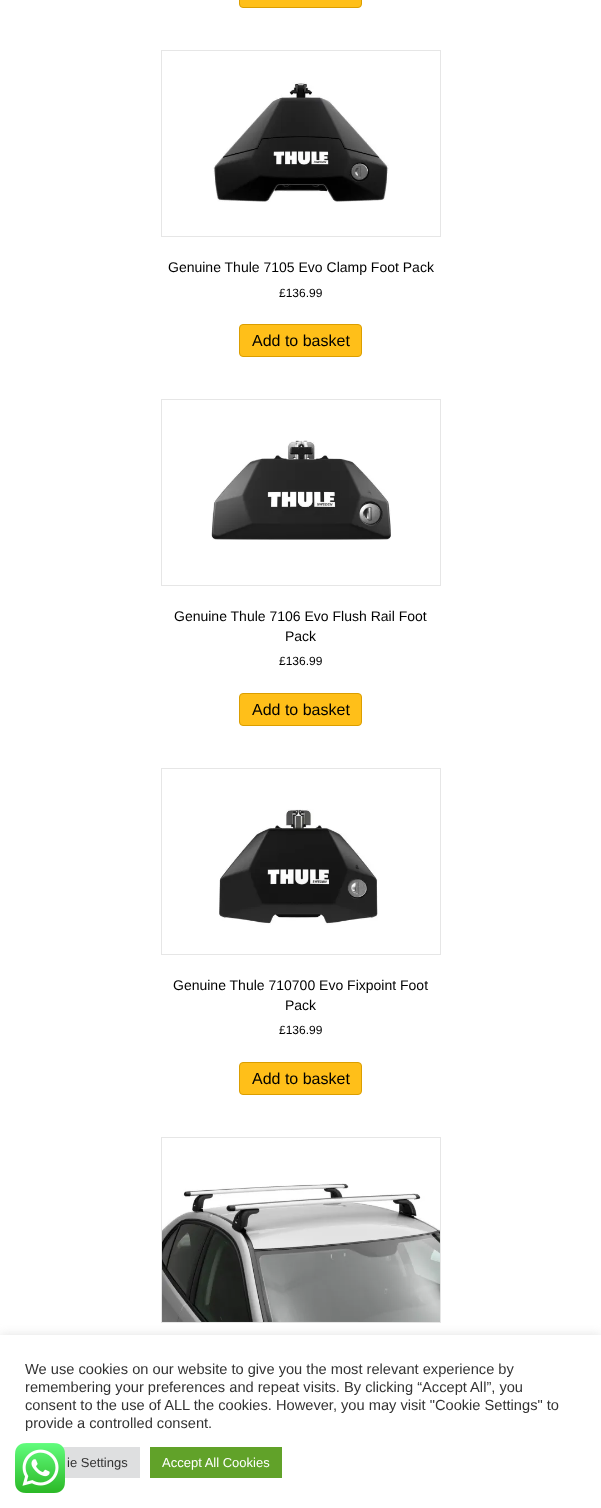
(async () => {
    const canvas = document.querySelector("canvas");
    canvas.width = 601;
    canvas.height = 1508;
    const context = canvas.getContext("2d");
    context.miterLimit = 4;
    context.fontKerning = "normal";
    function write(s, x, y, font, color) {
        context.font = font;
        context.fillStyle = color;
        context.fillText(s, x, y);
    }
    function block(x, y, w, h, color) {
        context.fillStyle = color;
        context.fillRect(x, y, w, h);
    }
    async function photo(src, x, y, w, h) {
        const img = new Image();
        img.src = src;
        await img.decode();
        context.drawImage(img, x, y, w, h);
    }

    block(0, 0, 601, 1508, "rgb(255, 255, 255)");
    context.fillStyle = "rgb(255, 191, 25)";
    context.beginPath();
    context.roundRect(239.5, -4.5, 122, 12, 3.5);
    context.fill();
    context.strokeStyle = "rgb(219, 158, 0)";
    context.stroke();
    context.strokeStyle = "rgb(230, 230, 230)";
    context.strokeRect(161.5, 50.5, 279, 186);
    await photo("media/1.png", 213, 82, 176, 120);
    write("Genuine Thule 7105 Evo Clamp Foot Pack", 168, 272, "14px Liberation Sans", "rgb(0, 0, 0)");
    write("£136.99", 279, 297, "12px Liberation Sans", "rgb(0, 0, 0)");
    context.fillStyle = "rgb(255, 191, 25)";
    context.beginPath();
    context.roundRect(239.5, 324.5, 122, 32, 3.5);
    context.fill();
    context.strokeStyle = "rgb(219, 158, 0)";
    context.stroke();
    write("Add to basket", 252, 346, "16px Liberation Sans", "rgb(0, 0, 0)");
    context.strokeStyle = "rgb(230, 230, 230)";
    context.strokeRect(161.5, 399.5, 279, 186);
    await photo("media/2.png", 211, 440, 180, 100);
    write("Genuine Thule 7106 Evo Flush Rail Foot", 174, 621, "14px Liberation Sans", "rgb(0, 0, 0)");
    write("Pack", 285, 641, "14px Liberation Sans", "rgb(0, 0, 0)");
    write("£136.99", 279, 665, "12px Liberation Sans", "rgb(0, 0, 0)");
    context.fillStyle = "rgb(255, 191, 25)";
    context.beginPath();
    context.roundRect(239.5, 693.5, 122, 32, 3.5);
    context.fill();
    context.strokeStyle = "rgb(219, 158, 0)";
    context.stroke();
    write("Add to basket", 252, 715, "16px Liberation Sans", "rgb(0, 0, 0)");
    context.strokeStyle = "rgb(230, 230, 230)";
    context.strokeRect(161.5, 768.5, 279, 186);
    await photo("media/3.png", 219, 809, 159, 116);
    write("Genuine Thule 710700 Evo Fixpoint Foot", 173, 990, "14px Liberation Sans", "rgb(0, 0, 0)");
    write("Pack", 285, 1010, "14px Liberation Sans", "rgb(0, 0, 0)");
    write("£136.99", 279, 1034, "12px Liberation Sans", "rgb(0, 0, 0)");
    context.fillStyle = "rgb(255, 191, 25)";
    context.beginPath();
    context.roundRect(239.5, 1062.5, 122, 32, 3.5);
    context.fill();
    context.strokeStyle = "rgb(219, 158, 0)";
    context.stroke();
    write("Add to basket", 252, 1084, "16px Liberation Sans", "rgb(0, 0, 0)");
    context.strokeStyle = "rgb(230, 230, 230)";
    context.strokeRect(161.5, 1137.5, 279, 185);
    await photo("media/4.png", 162, 1183, 278, 139);
    context.fillStyle = "rgba(172, 171, 171, 0.3)";
    context.filter = "blur(5px)";
    context.beginPath();
    context.rect(0, 1334, 601, 173);
    context.fill();
    context.filter = "none";
    block(0, 1335, 601, 173, "rgb(255, 255, 255)");
    write("We use cookies on our website to give you the most relevant experience by", 25, 1374, "14.65px Liberation Sans", "rgb(51, 51, 51)");
    write("remembering your preferences and repeat visits. By clicking “Accept All”, you", 25, 1392, "14.65px Liberation Sans", "rgb(51, 51, 51)");
    write("consent to the use of ALL the cookies. However, you may visit \"Cookie Settings\" to", 25, 1410, "14.65px Liberation Sans", "rgb(51, 51, 51)");
    write("provide a controlled consent.", 25, 1428, "14.65px Liberation Sans", "rgb(51, 51, 51)");
    block(62, 1447, 78, 31, "rgb(222, 223, 224)");
    write("ie Settings", 67, 1467, "13px Liberation Sans", "rgb(51, 51, 51)");
    block(150, 1447, 132, 31, "rgb(97, 162, 41)");
    write("Accept All Cookies", 162, 1467, "13px Liberation Sans", "rgb(255, 255, 255)");
    await photo("media/5.png", 15, 1443, 50, 50);
})();
